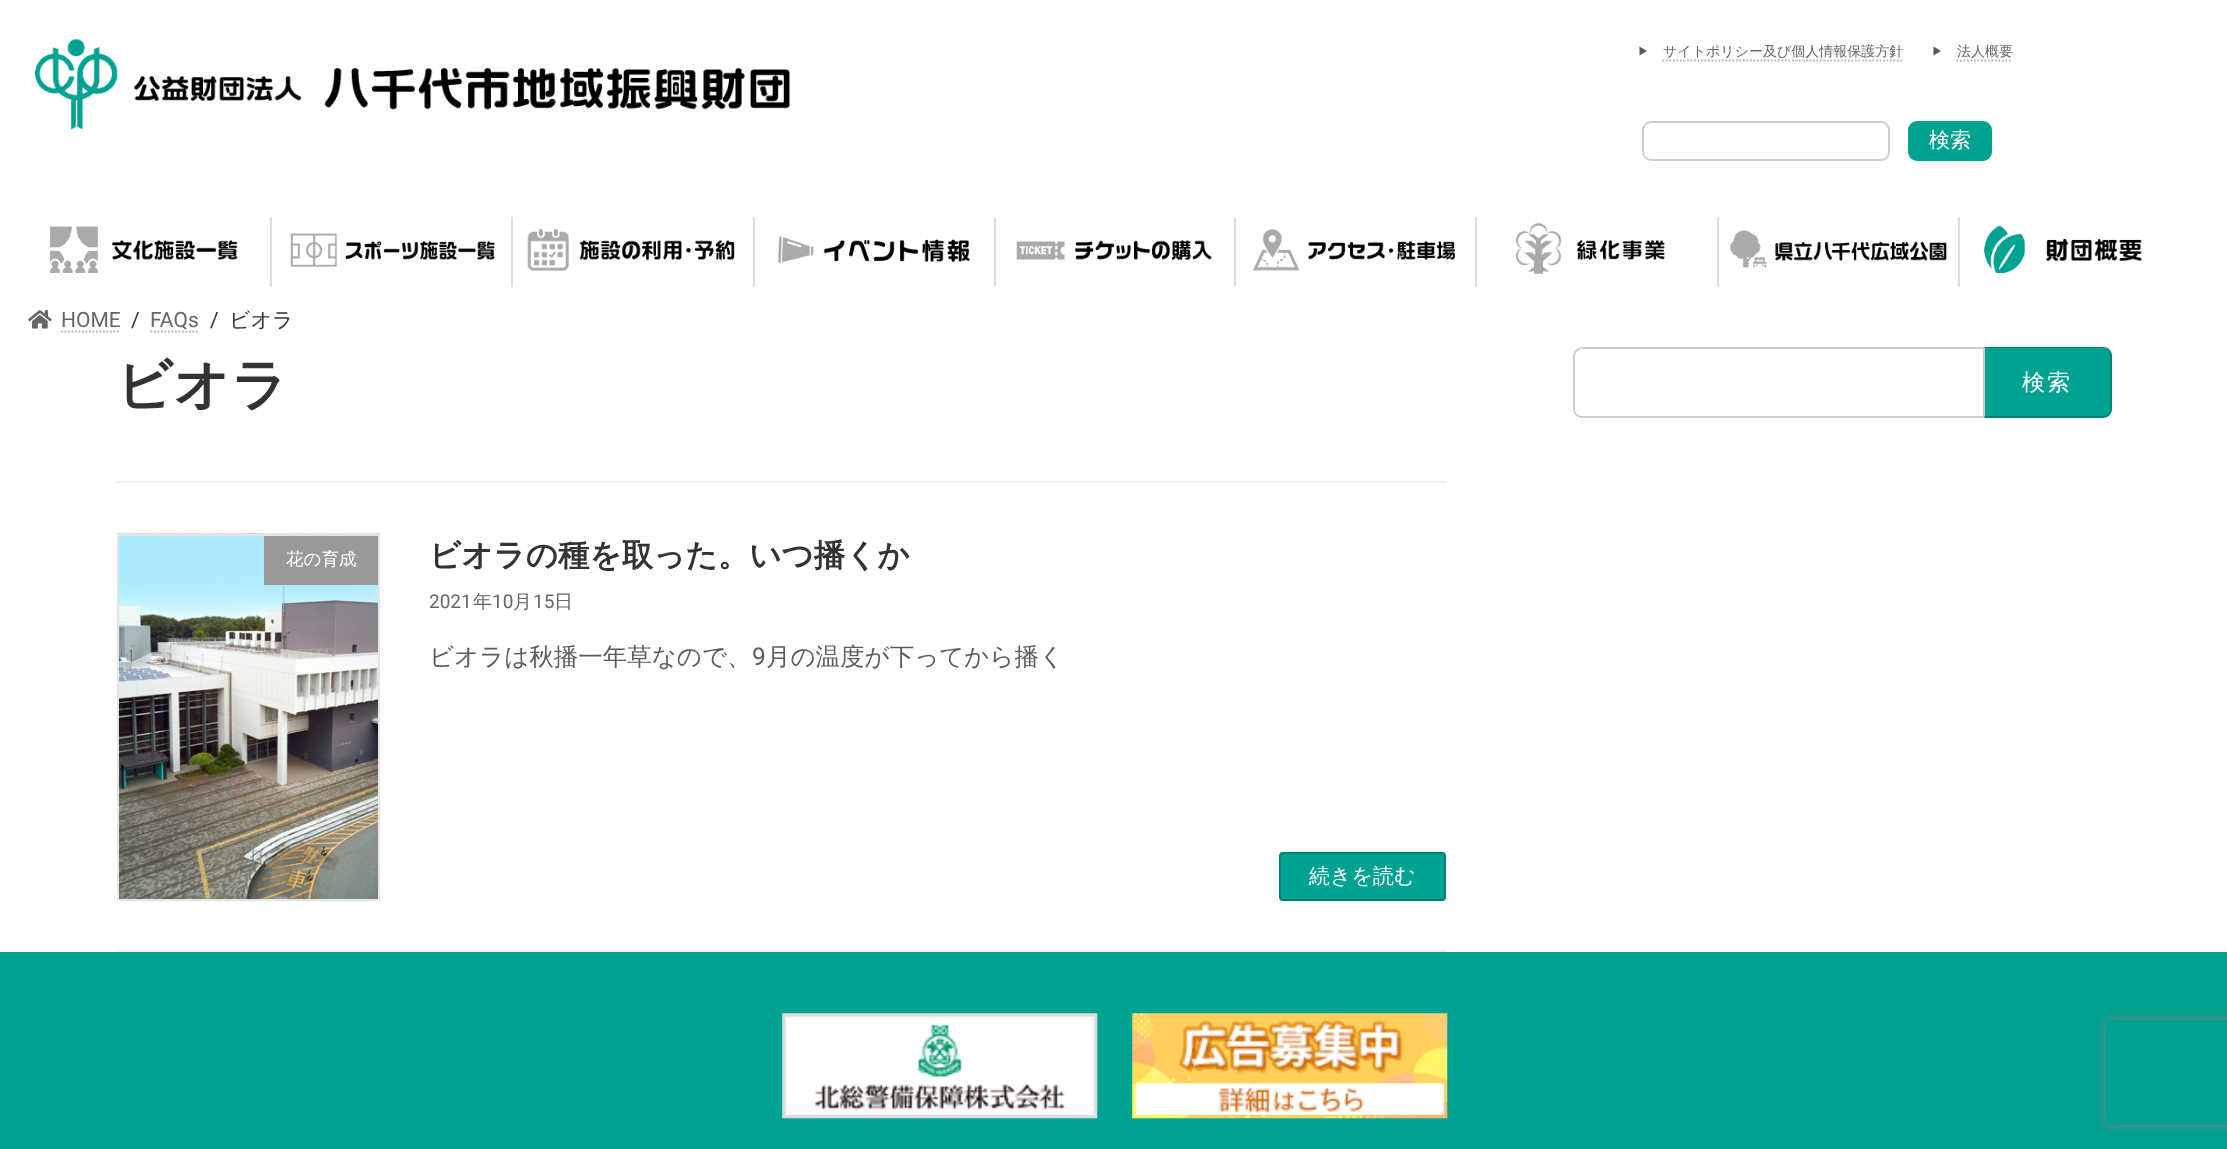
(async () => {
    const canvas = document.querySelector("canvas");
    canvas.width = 2227;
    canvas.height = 1149;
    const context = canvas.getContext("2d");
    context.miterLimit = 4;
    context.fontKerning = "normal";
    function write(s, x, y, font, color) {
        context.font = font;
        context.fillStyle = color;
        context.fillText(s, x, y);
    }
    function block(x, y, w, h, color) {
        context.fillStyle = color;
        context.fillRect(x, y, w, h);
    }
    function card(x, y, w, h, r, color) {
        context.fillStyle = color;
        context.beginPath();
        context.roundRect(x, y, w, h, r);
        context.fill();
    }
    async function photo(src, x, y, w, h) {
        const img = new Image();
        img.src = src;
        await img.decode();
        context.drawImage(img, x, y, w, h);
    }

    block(0, 0, 2227, 1149, "rgb(255, 255, 255)");
    await photo("media/1.png", 35, 39, 756, 91);
    context.fillStyle = "rgb(88, 88, 88)";
    context.beginPath();
    context.moveTo(1639.5, 46.5);
    context.lineTo(1647, 51);
    context.lineTo(1639.5, 55.5);
    context.closePath();
    context.fill();
    write("サイトポリシー及び個人情報保護方針", 1663, 56, "500 14px WenQuanYi Zen Hei", "rgb(102, 102, 102)");
    context.beginPath();
    context.moveTo(1662.5, 60.5);
    context.lineTo(1903, 60.5);
    context.strokeStyle = "rgb(179, 179, 179)";
    context.lineWidth = 1.8;
    context.setLineDash([1.75, 1.75]);
    context.stroke();
    context.fillStyle = "rgb(88, 88, 88)";
    context.beginPath();
    context.moveTo(1933.5, 46.5);
    context.lineTo(1941, 51);
    context.lineTo(1933.5, 55.5);
    context.closePath();
    context.fill();
    write("法人概要", 1957, 56, "500 14px WenQuanYi Zen Hei", "rgb(102, 102, 102)");
    context.beginPath();
    context.moveTo(1956.5, 60.5);
    context.lineTo(2012.5, 60.5);
    context.stroke();
    context.beginPath();
    context.roundRect(1643, 122, 246, 38, 8);
    context.strokeStyle = "rgb(204, 204, 204)";
    context.lineWidth = 2;
    context.setLineDash([]);
    context.stroke();
    card(1908, 121, 84, 40, 9, "rgb(0, 162, 145)");
    write("検索", 1929, 147, "500 21px WenQuanYi Zen Hei", "rgb(255, 255, 255)");
    await photo("media/2.png", 50, 226, 188, 47);
    block(270, 217, 2, 70, "rgb(221, 221, 221)");
    await photo("media/3.png", 290, 233, 205, 34);
    block(511, 217, 2, 70, "rgb(221, 221, 221)");
    await photo("media/4.png", 527, 228, 208, 43);
    block(753, 217, 2, 70, "rgb(221, 221, 221)");
    await photo("media/5.png", 777, 236, 193, 28);
    block(994, 217, 2, 70, "rgb(221, 221, 221)");
    await photo("media/6.png", 1016, 240, 196, 21);
    block(1234, 217, 2, 70, "rgb(221, 221, 221)");
    await photo("media/7.png", 1253, 229, 202, 42);
    block(1475, 217, 2, 70, "rgb(221, 221, 221)");
    await photo("media/8.png", 1516, 223, 149, 51);
    block(1717, 217, 2, 70, "rgb(221, 221, 221)");
    await photo("media/9.png", 1730, 230, 217, 38);
    block(1958, 217, 2, 70, "rgb(221, 221, 221)");
    await photo("media/10.png", 1984, 225, 158, 48);
    await photo("media/11.png", 28, 310, 24, 19);
    write("HOME", 61, 327, "21px Roboto", "rgb(102, 102, 102)");
    context.beginPath();
    context.moveTo(61, 331.5);
    context.lineTo(120.5, 331.5);
    context.strokeStyle = "rgb(179, 179, 179)";
    context.lineWidth = 1.8;
    context.setLineDash([1.75, 1.75]);
    context.stroke();
    write("/", 131, 327, "21px Roboto", "rgb(51, 51, 51)");
    write("FAQs", 150, 327, "21px Roboto", "rgb(102, 102, 102)");
    context.beginPath();
    context.moveTo(150.5, 331.5);
    context.lineTo(199, 331.5);
    context.stroke();
    write("/", 210, 327, "21px Roboto", "rgb(51, 51, 51)");
    write("ビオラ", 229, 327, "500 21px WenQuanYi Zen Hei", "rgb(51, 51, 51)");
    write("ビオラ", 116, 404, "bold 56px WenQuanYi Zen Hei", "rgb(51, 51, 51)");
    block(117, 481, 1329, 2, "rgb(240, 240, 240)");
    block(117, 950, 1329, 2, "rgb(240, 240, 240)");
    await photo("media/12.png", 117, 533, 263, 369);
    context.strokeStyle = "rgb(229, 229, 229)";
    context.lineWidth = 2;
    context.setLineDash([]);
    context.strokeRect(118, 535, 261, 365);
    block(264, 536, 114, 49, "rgb(153, 153, 153)");
    write("花の育成", 286, 565, "500 17.5px WenQuanYi Zen Hei", "rgb(255, 255, 255)");
    write("ビオラの種を取った。いつ播くか", 429, 566, "bold 31.5px WenQuanYi Zen Hei", "rgb(51, 51, 51)");
    write("2021", 429, 608, "19px Roboto", "rgb(102, 102, 102)");
    write("年", 473, 608, "500 19px WenQuanYi Zen Hei", "rgb(102, 102, 102)");
    write("10", 492, 608, "19px Roboto", "rgb(102, 102, 102)");
    write("月", 513, 608, "500 19px WenQuanYi Zen Hei", "rgb(102, 102, 102)");
    write("15", 533, 608, "19px Roboto", "rgb(102, 102, 102)");
    write("日", 554, 608, "500 19px WenQuanYi Zen Hei", "rgb(102, 102, 102)");
    write("ビオラは秋播一年草なので、", 429, 665, "500 24.5px WenQuanYi Zen Hei", "rgb(92, 92, 92)");
    write("9", 752, 665, "24.5px Roboto", "rgb(92, 92, 92)");
    write("月の温度が下ってから播く", 766, 665, "500 24.5px WenQuanYi Zen Hei", "rgb(92, 92, 92)");
    context.fillStyle = "rgb(0, 162, 145)";
    context.beginPath();
    context.roundRect(1280, 853, 165, 47, 3);
    context.fill();
    context.strokeStyle = "rgb(0, 129, 116)";
    context.stroke();
    write("続きを読む", 1309, 883, "500 21px WenQuanYi Zen Hei", "rgb(255, 255, 255)");
    context.beginPath();
    context.roundRect(1574, 348, 410, 69, [8, 0, 0, 8]);
    context.strokeStyle = "rgb(204, 204, 204)";
    context.stroke();
    context.fillStyle = "rgb(0, 162, 145)";
    context.beginPath();
    context.roundRect(1985, 347, 127, 71, [0, 9, 9, 0]);
    context.fill();
    context.save();
    context.beginPath();
    context.rect(1573, 347, 539, 124);
    context.clip();
    context.fillStyle = "rgba(0, 0, 0, 0.2)";
    context.beginPath();
    context.moveTo(1984, 346);
    context.lineTo(2104, 346);
    context.bezierCurveTo(2108, 346, 2112, 350, 2112, 355);
    context.lineTo(2112, 410);
    context.bezierCurveTo(2112, 414, 2108, 418, 2104, 418);
    context.lineTo(1984, 418);
    context.closePath();
    context.moveTo(1984, 348);
    context.lineTo(2104, 348);
    context.bezierCurveTo(2107, 348, 2110, 351, 2110, 355);
    context.lineTo(2110, 410);
    context.bezierCurveTo(2110, 413, 2107, 416, 2104, 416);
    context.lineTo(1984, 416);
    context.closePath();
    context.fill("evenodd");
    context.restore();
    context.letterSpacing = "2px";
    write("検索", 2022, 390, "500 23px WenQuanYi Zen Hei", "rgb(255, 255, 255)");
    block(0, 952, 2227, 197, "rgb(0, 162, 145)");
    await photo("media/13.png", 782, 1013, 316, 106);
    await photo("media/14.png", 1132, 1013, 316, 106);
    context.save();
    context.beginPath();
    context.moveTo(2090, 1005);
    context.lineTo(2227, 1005);
    context.lineTo(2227, 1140);
    context.lineTo(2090, 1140);
    context.closePath();
    context.moveTo(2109, 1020);
    context.lineTo(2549, 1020);
    context.bezierCurveTo(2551, 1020, 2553, 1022, 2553, 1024);
    context.lineTo(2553, 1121);
    context.bezierCurveTo(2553, 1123, 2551, 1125, 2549, 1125);
    context.lineTo(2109, 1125);
    context.bezierCurveTo(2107, 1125, 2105, 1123, 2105, 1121);
    context.lineTo(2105, 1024);
    context.bezierCurveTo(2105, 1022, 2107, 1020, 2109, 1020);
    context.closePath();
    context.clip("evenodd");
    context.fillStyle = "rgb(128, 128, 128)";
    context.filter = "blur(4.5px)";
    context.beginPath();
    context.roundRect(2105, 1020, 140, 105, 4);
    context.fill();
    context.filter = "none";
    context.restore();
})();
